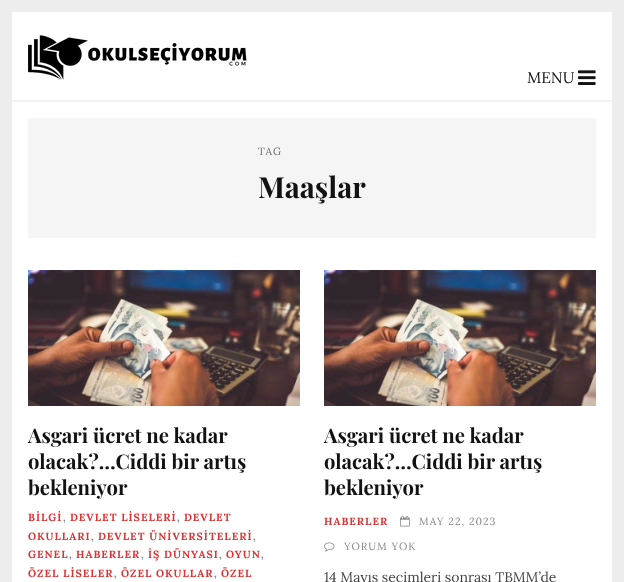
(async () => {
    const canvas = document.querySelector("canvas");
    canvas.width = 624;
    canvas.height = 582;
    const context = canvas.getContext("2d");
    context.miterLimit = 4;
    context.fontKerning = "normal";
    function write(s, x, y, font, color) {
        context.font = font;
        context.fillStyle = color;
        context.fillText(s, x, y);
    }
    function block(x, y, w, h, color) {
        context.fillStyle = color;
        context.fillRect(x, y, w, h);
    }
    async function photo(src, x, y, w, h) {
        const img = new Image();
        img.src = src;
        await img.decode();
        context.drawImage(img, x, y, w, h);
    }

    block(0, 0, 624, 582, "rgb(237, 237, 237)");
    block(12, 12, 600, 570, "rgb(255, 255, 255)");
    block(12, 100, 600, 2, "rgb(242, 242, 242)");
    await photo("media/1.png", 28, 35, 219, 45);
    write("MENU", 527, 83, "15.5px Lora", "rgb(18, 18, 18)");
    await photo("media/2.png", 578, 70, 18, 15);
    block(28, 118, 568, 120, "rgb(245, 245, 245)");
    context.letterSpacing = "1px";
    write("TAG", 258, 155, "10.5px Lora", "rgb(109, 109, 109)");
    context.letterSpacing = "0px";
    write("Maaşlar", 258, 198, "bold 29px Playfair Display", "rgb(18, 18, 18)");
    await photo("media/3.png", 28, 270, 272, 136);
    write("Asgari ücret ne kadar", 28, 443, "bold 20.25px Playfair Display", "rgb(18, 18, 18)");
    write("olacak?…Ciddi bir artış", 28, 469, "bold 20.25px Playfair Display", "rgb(18, 18, 18)");
    write("bekleniyor", 28, 495, "bold 20.25px Playfair Display", "rgb(18, 18, 18)");
    context.letterSpacing = "1px";
    write("BİLGİ", 28, 521, "bold 10.5px Lora", "rgb(221, 51, 51)");
    write(",", 63, 521, "bold 10.5px Lora", "rgb(136, 136, 136)");
    write("DEVLET LİSELERİ", 70, 521, "bold 10.5px Lora", "rgb(221, 51, 51)");
    write(",", 177, 521, "bold 10.5px Lora", "rgb(136, 136, 136)");
    write("DEVLET", 184, 521, "bold 10.5px Lora", "rgb(221, 51, 51)");
    write("OKULLARI", 28, 540, "bold 10.5px Lora", "rgb(221, 51, 51)");
    write(",", 91, 540, "bold 10.5px Lora", "rgb(136, 136, 136)");
    write("DEVLET ÜNİVERSİTELERİ", 98, 540, "bold 10.5px Lora", "rgb(221, 51, 51)");
    write(",", 253, 540, "bold 10.5px Lora", "rgb(136, 136, 136)");
    write("GENEL", 28, 558, "bold 10.5px Lora", "rgb(221, 51, 51)");
    write(",", 69, 558, "bold 10.5px Lora", "rgb(136, 136, 136)");
    write("HABERLER", 76, 558, "bold 10.5px Lora", "rgb(221, 51, 51)");
    write(",", 141, 558, "bold 10.5px Lora", "rgb(136, 136, 136)");
    write("İŞ DÜNYASI", 148, 558, "bold 10.5px Lora", "rgb(221, 51, 51)");
    write(",", 219, 558, "bold 10.5px Lora", "rgb(136, 136, 136)");
    write("OYUN", 226, 558, "bold 10.5px Lora", "rgb(221, 51, 51)");
    write(",", 261, 558, "bold 10.5px Lora", "rgb(136, 136, 136)");
    write("ÖZEL LİSELER", 28, 577, "bold 10.5px Lora", "rgb(221, 51, 51)");
    write(",", 114, 577, "bold 10.5px Lora", "rgb(136, 136, 136)");
    write("ÖZEL OKULLAR", 121, 577, "bold 10.5px Lora", "rgb(221, 51, 51)");
    write(",", 214, 577, "bold 10.5px Lora", "rgb(136, 136, 136)");
    write("ÖZEL", 221, 577, "bold 10.5px Lora", "rgb(221, 51, 51)");
    await photo("media/4.png", 324, 270, 272, 136);
    context.letterSpacing = "0px";
    write("Asgari ücret ne kadar", 324, 443, "bold 20.25px Playfair Display", "rgb(18, 18, 18)");
    write("olacak?…Ciddi bir artış", 324, 469, "bold 20.25px Playfair Display", "rgb(18, 18, 18)");
    write("bekleniyor", 324, 495, "bold 20.25px Playfair Display", "rgb(18, 18, 18)");
    context.letterSpacing = "1px";
    write("HABERLER", 324, 525, "bold 10.5px Lora", "rgb(221, 51, 51)");
    await photo("media/5.png", 400, 516, 10, 11);
    write("MAY 22, 2023", 419, 525, "10.5px Lora", "rgb(136, 136, 136)");
    await photo("media/6.png", 324, 542, 11, 10);
    write("YORUM YOK", 344, 550, "10.5px Lora", "rgb(136, 136, 136)");
    context.letterSpacing = "0px";
    write("14 Mayıs seçimleri sonrası TBMM’de", 324, 582, "14px Lora", "rgb(68, 68, 68)");
})();
